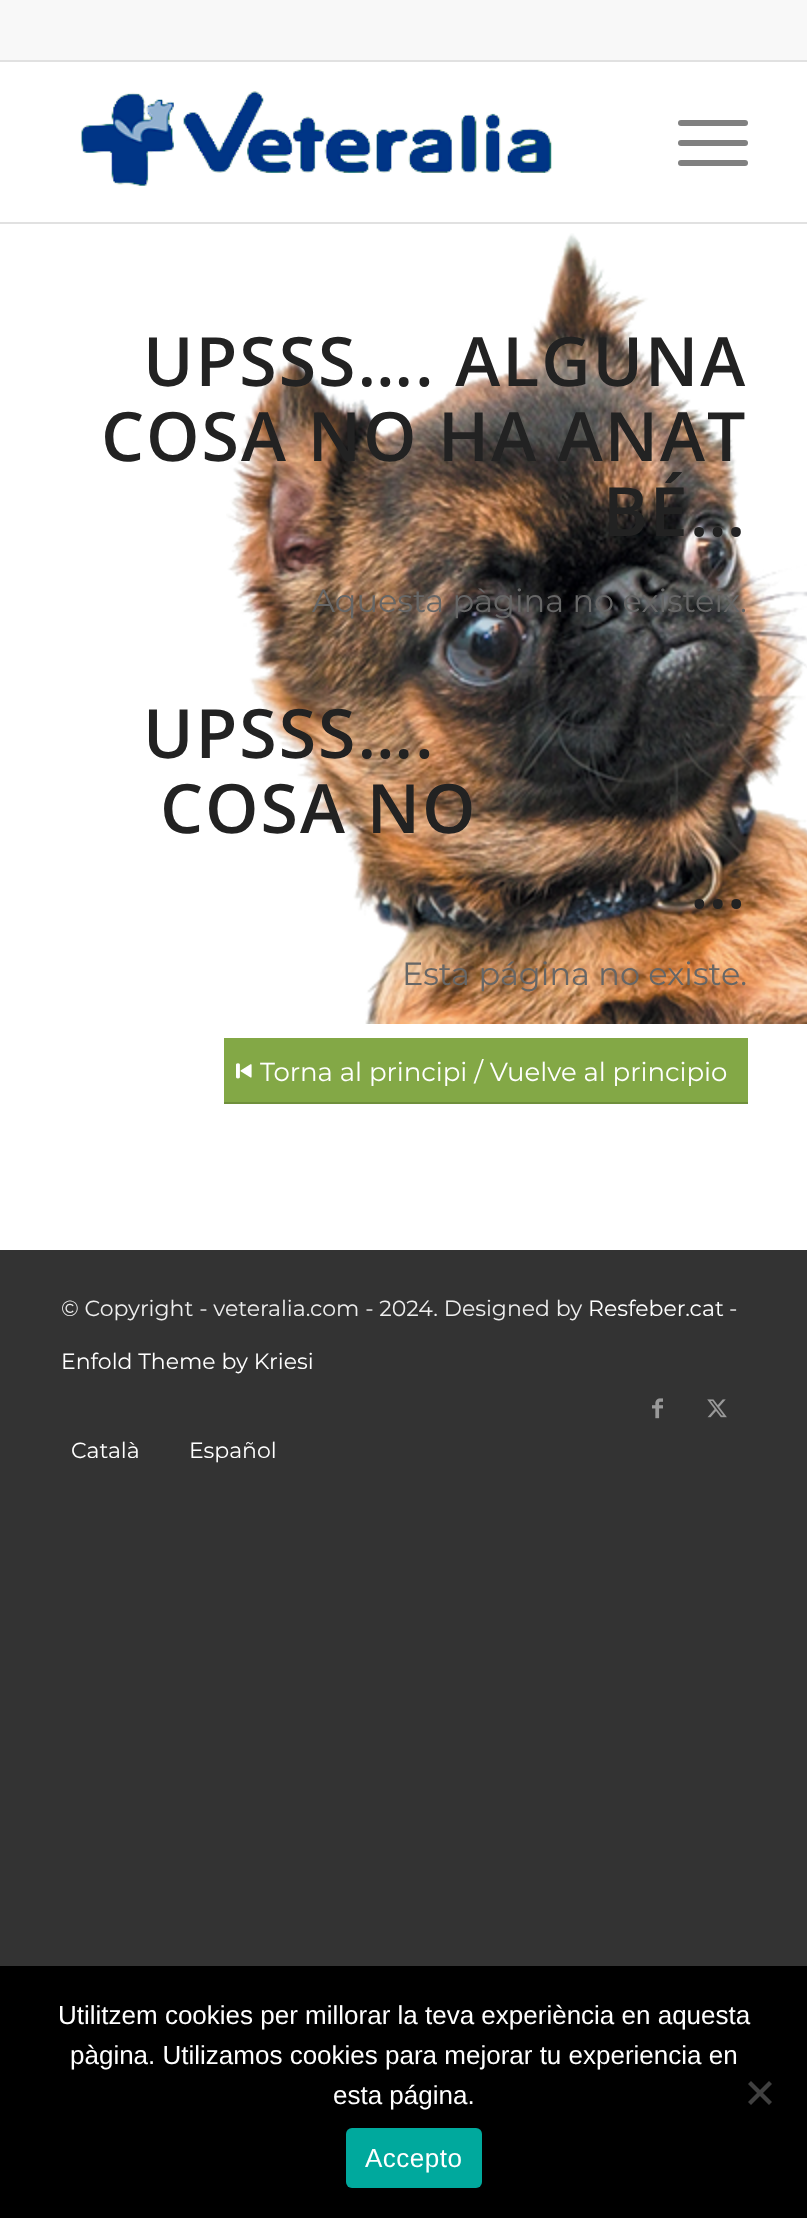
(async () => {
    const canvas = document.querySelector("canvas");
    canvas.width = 807;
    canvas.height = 2218;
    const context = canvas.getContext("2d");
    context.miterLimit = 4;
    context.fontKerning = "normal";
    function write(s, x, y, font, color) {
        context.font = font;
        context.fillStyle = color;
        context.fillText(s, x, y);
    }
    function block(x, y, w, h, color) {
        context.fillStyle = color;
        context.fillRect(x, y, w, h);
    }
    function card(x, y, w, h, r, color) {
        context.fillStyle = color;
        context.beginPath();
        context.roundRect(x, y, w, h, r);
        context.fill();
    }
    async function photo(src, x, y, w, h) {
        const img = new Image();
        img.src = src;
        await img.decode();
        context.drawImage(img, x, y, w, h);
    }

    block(0, 0, 807, 2218, "rgb(51, 51, 51)");
    block(0, 62, 807, 1188, "rgb(255, 255, 255)");
    block(0, 0, 807, 60, "rgb(248, 248, 248)");
    block(0, 60, 807, 2, "rgb(225, 225, 225)");
    block(0, 222, 807, 2, "rgb(225, 225, 225)");
    await photo("media/1.png", 80, 91, 472, 95);
    card(678, 140, 70, 6, 3, "rgb(128, 128, 128)");
    card(678, 120, 70, 6, 3, "rgb(128, 128, 128)");
    card(678, 160, 70, 6, 3, "rgb(128, 128, 128)");
    await photo("media/2.png", 226, 233, 581, 791);
    context.letterSpacing = "2px";
    write("UPSSS…. ALGUNA", 143, 386, "600 68px Open Sans", "rgb(34, 34, 34)");
    write("COSA NO HA ANAT", 101, 461, "600 68px Open Sans", "rgb(34, 34, 34)");
    write("BÉ…", 603, 536, "600 68px Open Sans", "rgb(34, 34, 34)");
    context.letterSpacing = "0px";
    write("Aquesta pàgina no existeix.", 312, 612, "100 32px Montserrat", "rgb(102, 102, 102)");
    context.letterSpacing = "2px";
    write("UPSSS….", 143, 758, "600 68px Open Sans", "rgb(34, 34, 34)");
    write("COSA NO", 160, 833, "600 68px Open Sans", "rgb(34, 34, 34)");
    write("…", 690, 908, "600 68px Open Sans", "rgb(34, 34, 34)");
    context.letterSpacing = "0px";
    write("Esta página no existe.", 402, 985, "100 32px Montserrat", "rgb(102, 102, 102)");
    block(224, 1038, 524, 64, "rgb(131, 168, 70)");
    block(224, 1102, 524, 2, "rgb(111, 143, 59)");
    await photo("media/3.png", 236, 1063, 16, 16);
    write("Torna al principi / Vuelve al principio", 260, 1081, "100 26px Montserrat", "rgb(255, 255, 255)");
    write("© Copyright - veteralia.com - 2024. Designed by", 61, 1316, "100 22px Montserrat", "rgb(238, 238, 238)");
    write("Resfeber.cat", 588, 1316, "100 22px Montserrat", "rgb(255, 255, 255)");
    write("-", 729, 1316, "100 22px Montserrat", "rgb(238, 238, 238)");
    write("Enfold Theme by Kriesi", 61, 1369, "100 22px Montserrat", "rgb(255, 255, 255)");
    await photo("media/4.png", 652, 1398, 11, 21);
    await photo("media/5.png", 707, 1399, 20, 19);
    write("Català", 71, 1458, "100 22px Montserrat", "rgb(255, 255, 255)");
    write("Español", 189, 1458, "100 22px Montserrat", "rgb(255, 255, 255)");
    block(0, 1966, 807, 252, "rgb(0, 0, 0)");
    write("Utilitzem cookies per millorar la teva experiència en aquesta", 58, 2024, "26px Liberation Sans", "rgb(255, 255, 255)");
    write("pàgina. Utilizamos cookies para mejorar tu experiencia en", 70, 2064, "26px Liberation Sans", "rgb(255, 255, 255)");
    write("esta página.", 333, 2104, "26px Liberation Sans", "rgb(255, 255, 255)");
    context.fillStyle = "rgb(64, 64, 64)";
    context.beginPath();
    context.moveTo(769, 2081);
    context.lineTo(772, 2084);
    context.lineTo(751, 2105);
    context.lineTo(748, 2102);
    context.closePath();
    context.fill();
    context.beginPath();
    context.moveTo(748, 2084);
    context.lineTo(751, 2081);
    context.lineTo(772, 2102);
    context.lineTo(769, 2105);
    context.closePath();
    context.fill();
    card(346, 2128, 136, 60, 6, "rgb(0, 169, 157)");
    context.letterSpacing = "0.5px";
    write("Accepto", 365, 2167, "26px Liberation Sans", "rgb(255, 255, 255)");
})();
